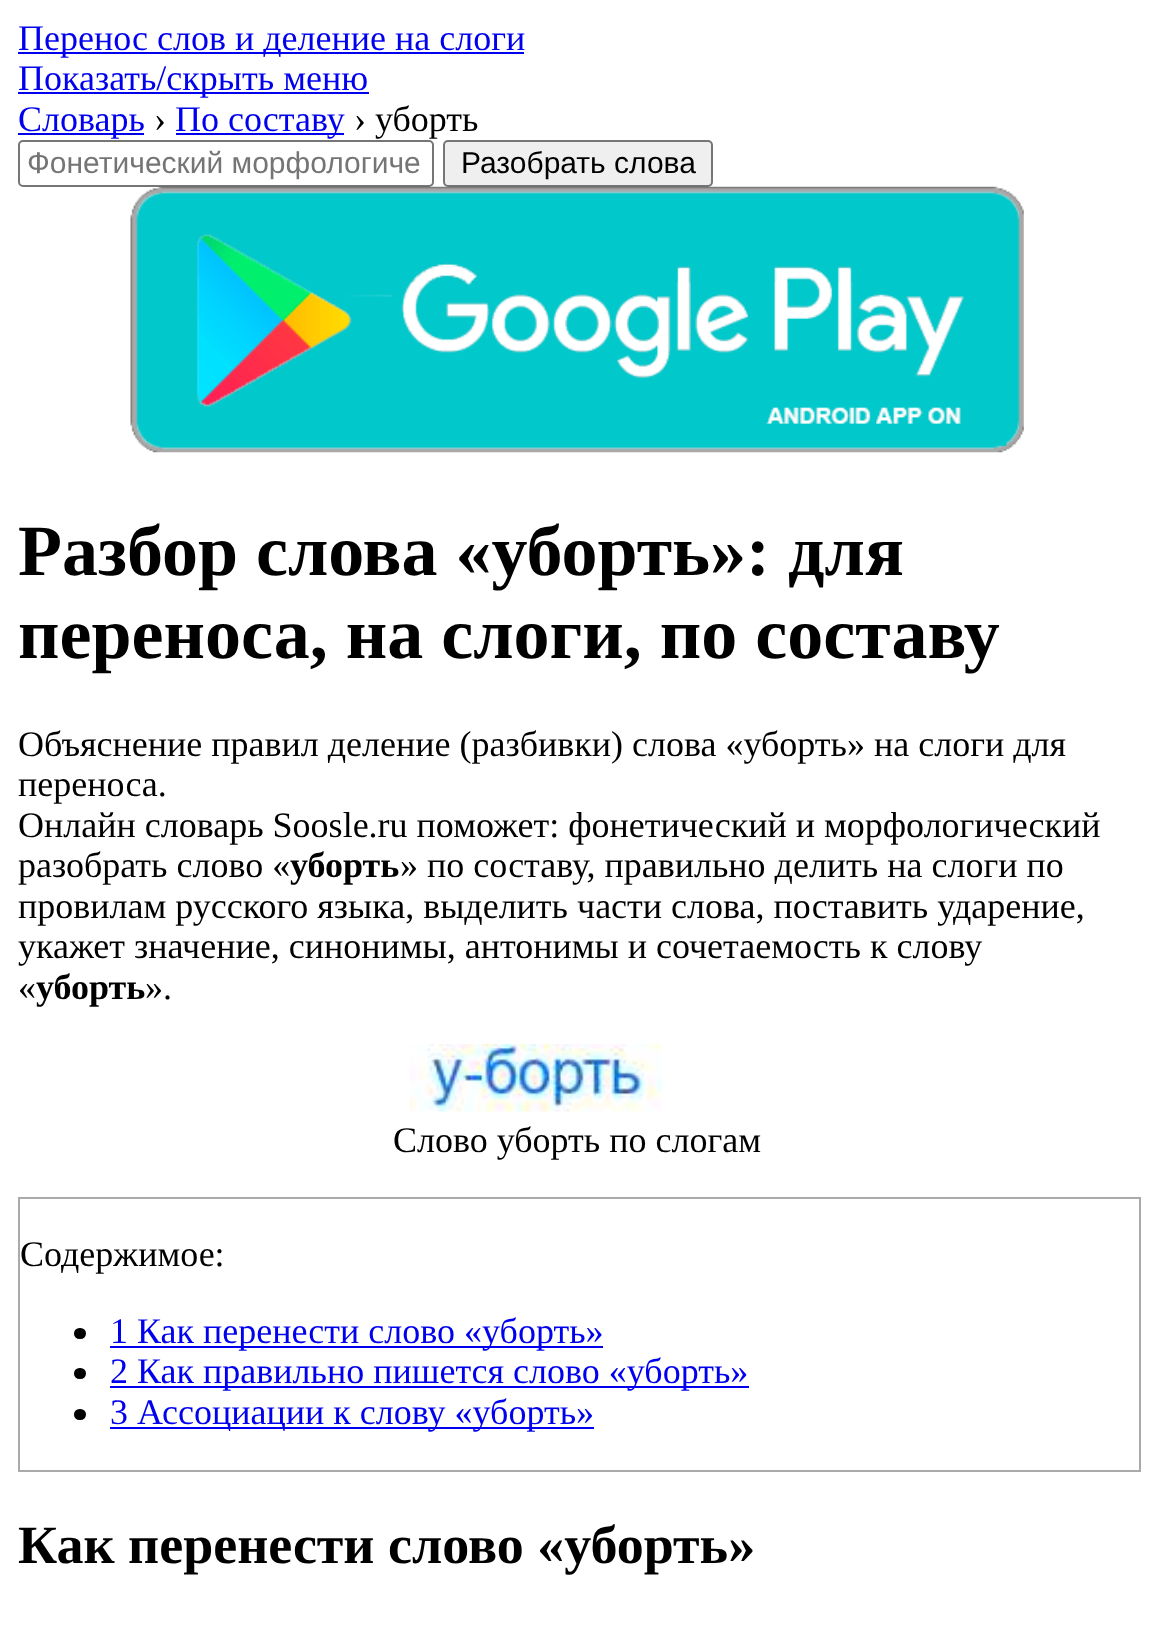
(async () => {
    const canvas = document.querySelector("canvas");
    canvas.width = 1154;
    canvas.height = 1645;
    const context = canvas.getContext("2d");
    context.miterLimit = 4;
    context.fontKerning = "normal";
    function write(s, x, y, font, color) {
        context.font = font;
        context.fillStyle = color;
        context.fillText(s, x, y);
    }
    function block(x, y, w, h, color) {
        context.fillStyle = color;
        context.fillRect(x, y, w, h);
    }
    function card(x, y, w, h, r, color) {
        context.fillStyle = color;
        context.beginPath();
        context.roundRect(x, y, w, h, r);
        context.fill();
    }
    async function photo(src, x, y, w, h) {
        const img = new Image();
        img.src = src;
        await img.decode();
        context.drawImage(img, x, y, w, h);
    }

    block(0, 0, 1154, 1645, "rgb(255, 255, 255)");
    block(18, 52, 506, 2, "rgb(0, 0, 238)");
    write("Перенос слов и деление на слоги", 18, 50, "36px Liberation Serif", "rgb(0, 0, 238)");
    block(18, 92, 351, 2, "rgb(0, 0, 238)");
    write("Показать/скрыть меню", 18, 90, "36px Liberation Serif", "rgb(0, 0, 238)");
    block(18, 133, 126, 2, "rgb(0, 0, 238)");
    write("Словарь", 18, 131, "36px Liberation Serif", "rgb(0, 0, 238)");
    write("›", 154, 131, "36px Liberation Serif", "rgb(0, 0, 0)");
    block(176, 133, 168, 2, "rgb(0, 0, 238)");
    write("По составу", 175, 131, "36px Liberation Serif", "rgb(0, 0, 238)");
    write("› уборть", 354, 131, "36px Liberation Serif", "rgb(0, 0, 0)");
    context.beginPath();
    context.roundRect(19, 141, 414, 45, 4);
    context.strokeStyle = "rgb(118, 118, 118)";
    context.lineWidth = 2;
    context.stroke();
    write("Фонетический морфологиче", 27, 173, "30px Liberation Sans", "rgb(117, 117, 117)");
    context.fillStyle = "rgb(239, 239, 239)";
    context.beginPath();
    context.roundRect(444, 141, 268, 45, 4);
    context.fill();
    context.stroke();
    write("Разобрать слова", 461, 173, "30px Liberation Sans", "rgb(0, 0, 0)");
    await photo("media/1.png", 130, 186, 894, 267);
    write("Разбор слова «уборть»: для", 18, 575, "bold 72px Liberation Serif", "rgb(0, 0, 0)");
    write("переноса, на слоги, по составу", 18, 658, "bold 72px Liberation Serif", "rgb(0, 0, 0)");
    write("Объяснение правил деление (разбивки) слова «уборть» на слоги для", 18, 756, "36px Liberation Serif", "rgb(0, 0, 0)");
    write("переноса.", 18, 796, "36px Liberation Serif", "rgb(0, 0, 0)");
    write("Онлайн словарь Soosle.ru поможет: фонетический и морфологический", 18, 837, "36px Liberation Serif", "rgb(0, 0, 0)");
    write("разобрать слово «", 18, 877, "36px Liberation Serif", "rgb(0, 0, 0)");
    write("уборть", 290, 877, "bold 36px Liberation Serif", "rgb(0, 0, 0)");
    write("» по составу, правильно делить на слоги по", 400, 877, "36px Liberation Serif", "rgb(0, 0, 0)");
    write("провилам русского языка, выделить части слова, поставить ударение,", 18, 918, "36px Liberation Serif", "rgb(0, 0, 0)");
    write("укажет значение, синонимы, антонимы и сочетаемость к слову", 18, 958, "36px Liberation Serif", "rgb(0, 0, 0)");
    write("«", 18, 999, "36px Liberation Serif", "rgb(0, 0, 0)");
    write("уборть", 36, 999, "bold 36px Liberation Serif", "rgb(0, 0, 0)");
    write("».", 145, 999, "36px Liberation Serif", "rgb(0, 0, 0)");
    await photo("media/2.png", 409, 1044, 254, 68);
    write("Слово уборть по слогам", 393, 1152, "36px Liberation Serif", "rgb(0, 0, 0)");
    context.strokeStyle = "rgb(170, 170, 170)";
    context.strokeRect(19, 1198, 1121, 273);
    write("Содержимое:", 20, 1266, "36px Liberation Serif", "rgb(0, 0, 0)");
    card(74, 1328, 12, 11, 5.5, "rgb(0, 0, 0)");
    block(110, 1346, 493, 2, "rgb(0, 0, 238)");
    write("1 Как перенести слово «уборть»", 110, 1343, "36px Liberation Serif", "rgb(0, 0, 238)");
    card(74, 1368, 12, 11, 5.5, "rgb(0, 0, 0)");
    block(110, 1386, 639, 2, "rgb(0, 0, 238)");
    write("2 Как правильно пишется слово «уборть»", 110, 1383, "36px Liberation Serif", "rgb(0, 0, 238)");
    card(74, 1409, 12, 11, 5.5, "rgb(0, 0, 0)");
    block(110, 1427, 484, 2, "rgb(0, 0, 238)");
    write("3 Ассоциации к слову «уборть»", 110, 1424, "36px Liberation Serif", "rgb(0, 0, 238)");
    write("Как перенести слово «уборть»", 18, 1563, "bold 54px Liberation Serif", "rgb(0, 0, 0)");
})();
